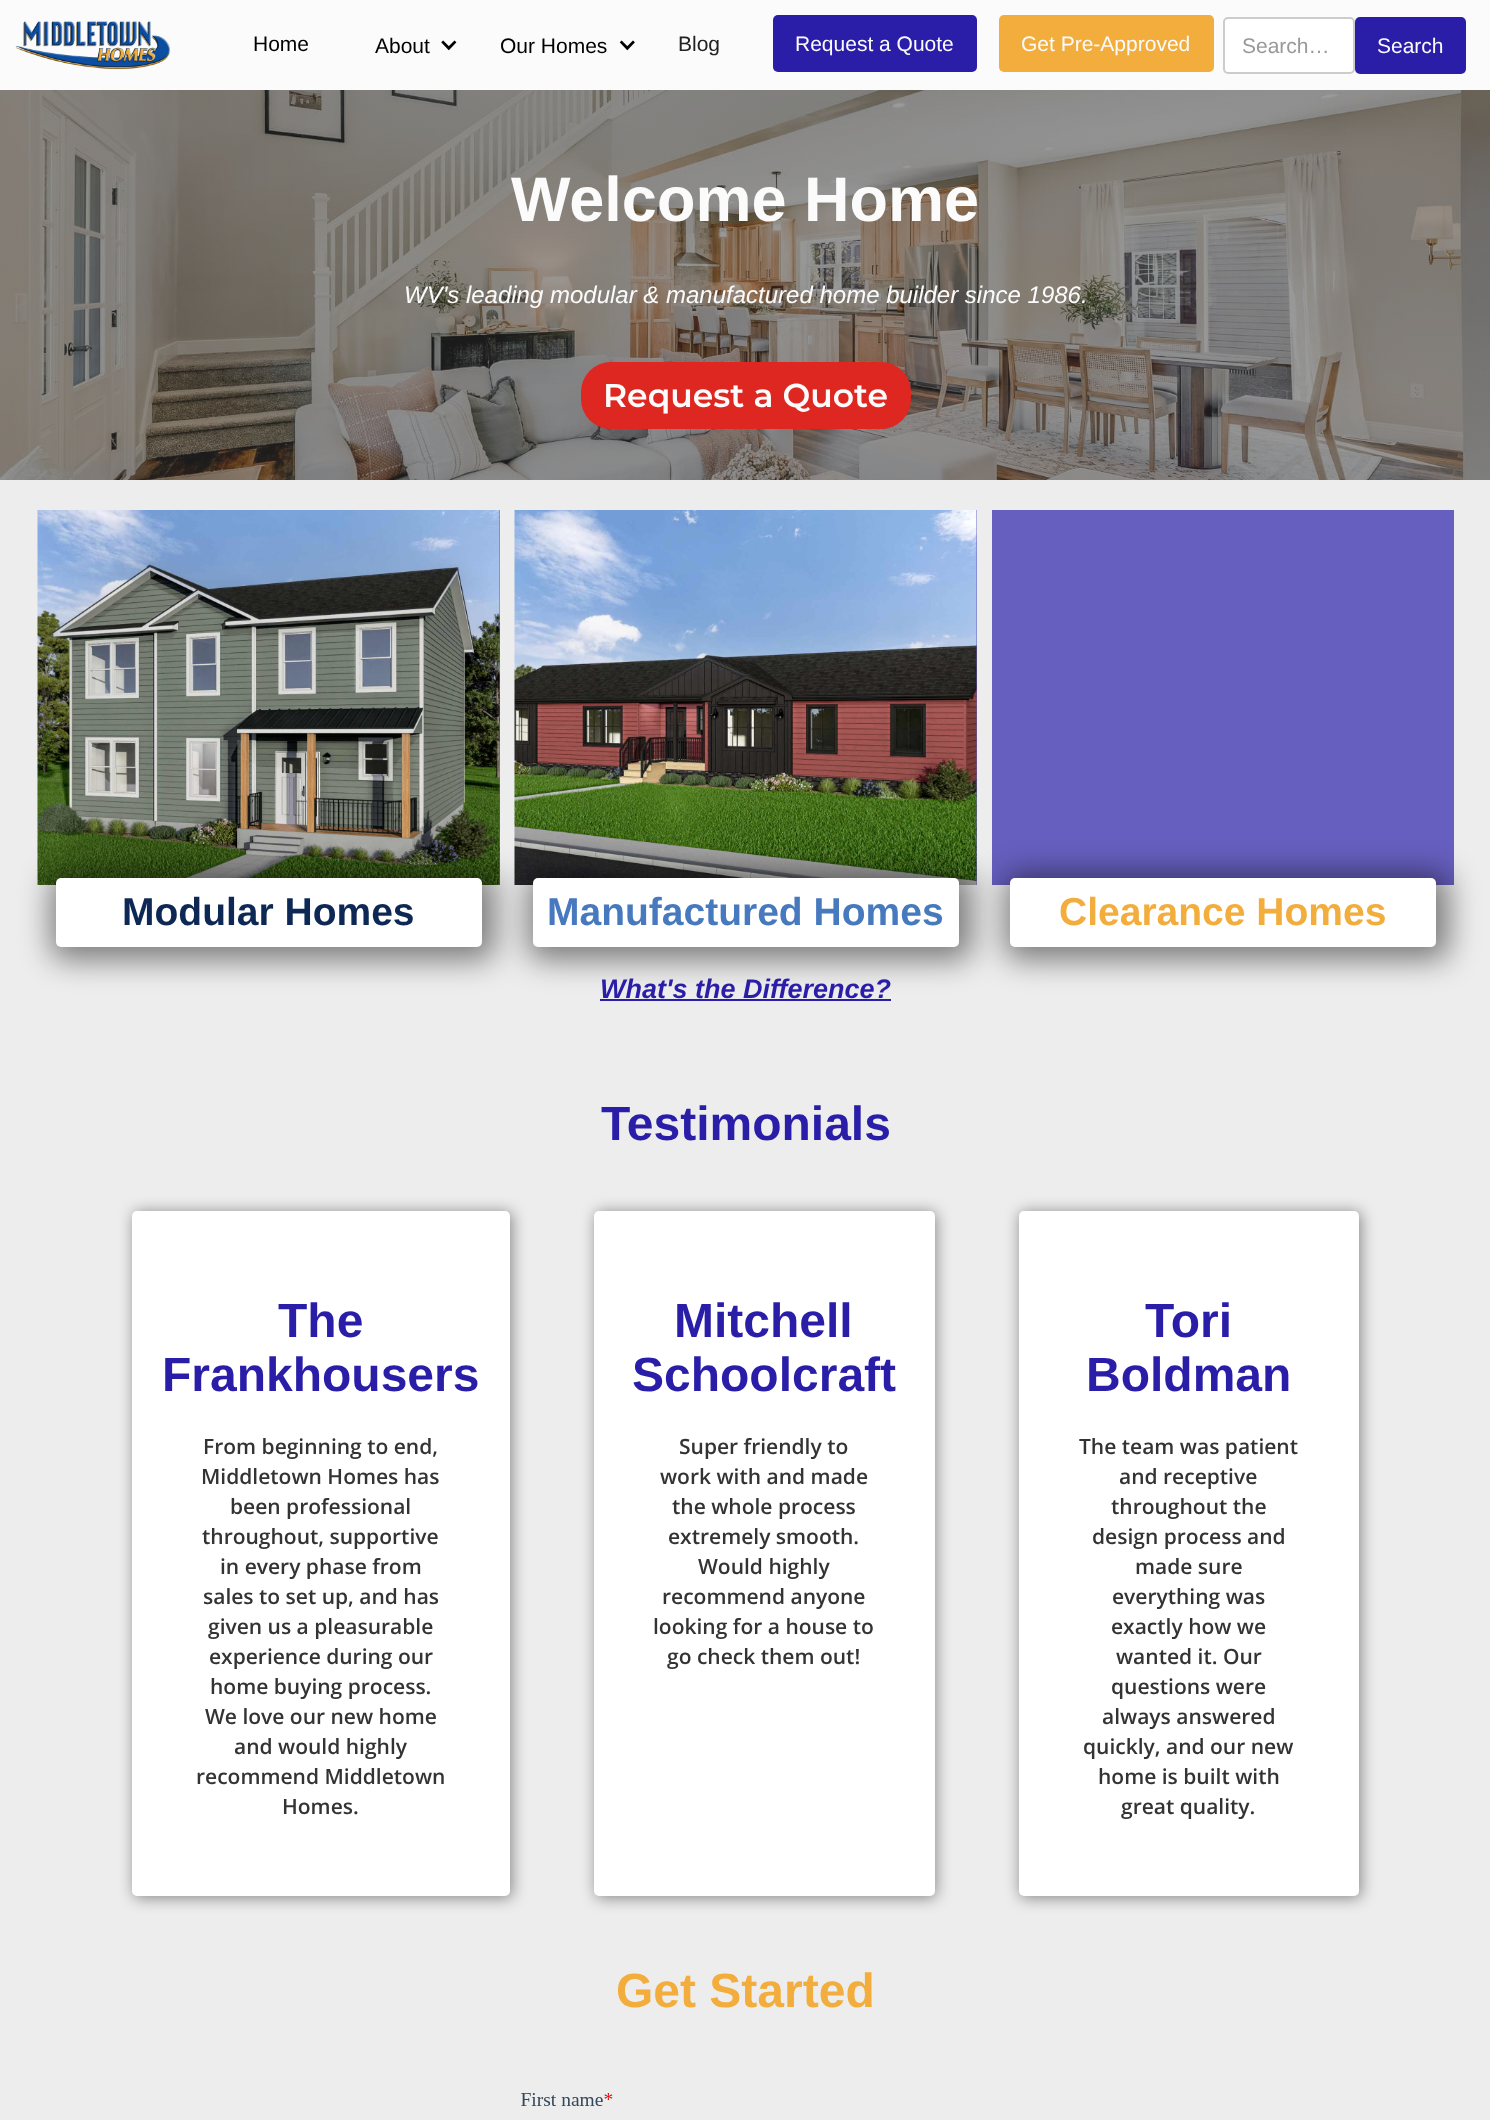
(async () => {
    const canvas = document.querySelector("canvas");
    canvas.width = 1490;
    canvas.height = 2120;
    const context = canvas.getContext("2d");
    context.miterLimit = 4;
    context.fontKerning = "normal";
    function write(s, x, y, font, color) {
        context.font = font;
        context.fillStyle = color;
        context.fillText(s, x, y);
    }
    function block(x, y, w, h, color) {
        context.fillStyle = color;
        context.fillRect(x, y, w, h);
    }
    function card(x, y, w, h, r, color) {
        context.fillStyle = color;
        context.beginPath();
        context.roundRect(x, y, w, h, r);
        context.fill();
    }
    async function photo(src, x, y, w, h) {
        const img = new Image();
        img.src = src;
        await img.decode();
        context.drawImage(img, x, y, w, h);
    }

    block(0, 0, 1490, 2120, "rgb(237, 237, 237)");
    block(0, 0, 1490, 90, "rgb(251, 251, 251)");
    await photo("media/1.png", 15, 21, 155, 49);
    write("Home", 253, 51, "21px Liberation Sans", "rgb(0, 0, 0)");
    write("About", 375, 53, "21px Liberation Sans", "rgb(0, 0, 0)");
    await photo("media/2.png", 441, 40, 16, 11);
    write("Our Homes", 500, 53, "21px Liberation Sans", "rgb(0, 0, 0)");
    await photo("media/3.png", 619, 40, 16, 11);
    write("Blog", 678, 51, "21px Liberation Sans", "rgb(34, 34, 34)");
    card(773, 15, 204, 57, 5, "rgb(42, 30, 169)");
    write("Request a Quote", 795, 51, "21px Liberation Sans", "rgb(251, 251, 251)");
    card(999, 15, 215, 57, 5, "rgb(242, 173, 60)");
    write("Get Pre-Approved", 1021, 51, "21px Liberation Sans", "rgb(251, 251, 251)");
    context.fillStyle = "rgb(255, 255, 255)";
    context.beginPath();
    context.roundRect(1224, 18, 130, 55, 4);
    context.fill();
    context.strokeStyle = "rgb(204, 204, 204)";
    context.lineWidth = 2;
    context.stroke();
    write("Search…", 1242, 53, "21px Liberation Sans", "rgb(153, 153, 153)");
    card(1355, 17, 111, 57, 5, "rgb(42, 30, 169)");
    write("Search", 1377, 53, "21px Liberation Sans", "rgb(251, 251, 251)");
    await photo("media/4.png", 0, 90, 1490, 390);
    write("Welcome Home", 511, 221, "bold 63px Liberation Sans", "rgb(251, 251, 251)");
    write("WV's leading modular & manufactured home builder since 1986.", 404, 303, "italic 24px Liberation Sans", "rgb(251, 251, 251)");
    card(581, 362, 330, 67, 30, "rgb(223, 39, 33)");
    write("Request a Quote", 603, 407, "600 33px Montserrat", "rgb(251, 251, 251)");
    block(499, 510, 1, 375, "rgb(102, 94, 190)");
    await photo("media/5.png", 37, 510, 463, 375);
    context.fillStyle = "rgba(0, 0, 0, 0.48)";
    context.filter = "blur(15px)";
    context.beginPath();
    context.roundRect(51, 873, 444, 87, 14);
    context.fill();
    context.filter = "none";
    card(56, 878, 426, 69, 5, "rgb(255, 255, 255)");
    write("Modular Homes", 122, 925, "bold 39px Liberation Sans", "rgb(13, 40, 84)");
    block(976, 510, 1, 375, "rgba(42, 30, 169, 0.69)");
    await photo("media/6.png", 514, 510, 463, 375);
    block(600, 999, 291, 2, "rgb(42, 30, 169)");
    context.fillStyle = "rgba(0, 0, 0, 0.48)";
    context.filter = "blur(15px)";
    context.beginPath();
    context.roundRect(528, 873, 444, 87, 14);
    context.fill();
    context.filter = "none";
    card(533, 878, 426, 69, 5, "rgb(255, 255, 255)");
    write("Manufactured Homes", 547, 925, "bold 39px Liberation Sans", "rgb(71, 121, 190)");
    block(992, 510, 462, 375, "rgba(42, 30, 169, 0.69)");
    context.fillStyle = "rgba(0, 0, 0, 0.48)";
    context.filter = "blur(15px)";
    context.beginPath();
    context.roundRect(1005, 873, 444, 87, 14);
    context.fill();
    context.filter = "none";
    card(1010, 878, 426, 69, 5, "rgb(255, 255, 255)");
    write("Clearance Homes", 1059, 925, "bold 39px Liberation Sans", "rgb(242, 173, 60)");
    write("What's the Difference?", 600, 998, "italic bold 27px Liberation Sans", "rgb(42, 30, 169)");
    write("Testimonials", 601, 1140, "bold 48px Liberation Sans", "rgb(42, 30, 169)");
    context.fillStyle = "rgba(0, 0, 0, 0.43)";
    context.filter = "blur(7.5px)";
    context.beginPath();
    context.roundRect(134, 1212, 378, 686, 5);
    context.fill();
    context.filter = "none";
    card(132, 1211, 378, 685, 5, "rgb(255, 255, 255)");
    write("The", 278, 1337, "bold 48px Liberation Sans", "rgb(42, 30, 169)");
    write("Frankhousers", 162, 1391, "bold 48px Liberation Sans", "rgb(42, 30, 169)");
    write("From beginning to end,", 203, 1454, "600 21px Open Sans", "rgb(51, 51, 51)");
    write("Middletown Homes has", 201, 1484, "600 21px Open Sans", "rgb(51, 51, 51)");
    write("been professional", 230, 1514, "600 21px Open Sans", "rgb(51, 51, 51)");
    write("throughout, supportive", 202, 1544, "600 21px Open Sans", "rgb(51, 51, 51)");
    write("in every phase from", 220, 1574, "600 21px Open Sans", "rgb(51, 51, 51)");
    write("sales to set up, and has", 203, 1604, "600 21px Open Sans", "rgb(51, 51, 51)");
    write("given us a pleasurable", 208, 1634, "600 21px Open Sans", "rgb(51, 51, 51)");
    write("experience during our", 209, 1664, "600 21px Open Sans", "rgb(51, 51, 51)");
    write("home buying process.", 210, 1694, "600 21px Open Sans", "rgb(51, 51, 51)");
    write("We love our new home", 205, 1724, "600 21px Open Sans", "rgb(51, 51, 51)");
    write("and would highly", 234, 1754, "600 21px Open Sans", "rgb(51, 51, 51)");
    write("recommend Middletown", 196, 1784, "600 21px Open Sans", "rgb(51, 51, 51)");
    write("Homes.", 282, 1814, "600 21px Open Sans", "rgb(51, 51, 51)");
    context.fillStyle = "rgba(0, 0, 0, 0.43)";
    context.filter = "blur(7.5px)";
    context.beginPath();
    context.roundRect(596, 1212, 340, 686, 5);
    context.fill();
    context.filter = "none";
    card(594, 1211, 341, 685, 5, "rgb(255, 255, 255)");
    write("Mitchell", 674, 1337, "bold 48px Liberation Sans", "rgb(42, 30, 169)");
    write("Schoolcraft", 632, 1391, "bold 48px Liberation Sans", "rgb(42, 30, 169)");
    write("Super friendly to", 679, 1454, "600 21px Open Sans", "rgb(51, 51, 51)");
    write("work with and made", 660, 1484, "600 21px Open Sans", "rgb(51, 51, 51)");
    write("the whole process", 672, 1514, "600 21px Open Sans", "rgb(51, 51, 51)");
    write("extremely smooth.", 668, 1544, "600 21px Open Sans", "rgb(51, 51, 51)");
    write("Would highly", 698, 1574, "600 21px Open Sans", "rgb(51, 51, 51)");
    write("recommend anyone", 662, 1604, "600 21px Open Sans", "rgb(51, 51, 51)");
    write("looking for a house to", 653, 1634, "600 21px Open Sans", "rgb(51, 51, 51)");
    write("go check them out!", 667, 1664, "600 21px Open Sans", "rgb(51, 51, 51)");
    context.fillStyle = "rgba(0, 0, 0, 0.43)";
    context.filter = "blur(7.5px)";
    context.beginPath();
    context.roundRect(1020, 1212, 341, 686, 5);
    context.fill();
    context.filter = "none";
    card(1019, 1211, 340, 685, 5, "rgb(255, 255, 255)");
    write("Tori", 1145, 1337, "bold 48px Liberation Sans", "rgb(42, 30, 169)");
    write("Boldman", 1086, 1391, "bold 48px Liberation Sans", "rgb(42, 30, 169)");
    write("The team was patient", 1079, 1454, "600 21px Open Sans", "rgb(51, 51, 51)");
    write("and receptive", 1119, 1484, "600 21px Open Sans", "rgb(51, 51, 51)");
    write("throughout the", 1111, 1514, "600 21px Open Sans", "rgb(51, 51, 51)");
    write("design process and", 1092, 1544, "600 21px Open Sans", "rgb(51, 51, 51)");
    write("made sure", 1135, 1574, "600 21px Open Sans", "rgb(51, 51, 51)");
    write("everything was", 1112, 1604, "600 21px Open Sans", "rgb(51, 51, 51)");
    write("exactly how we", 1111, 1634, "600 21px Open Sans", "rgb(51, 51, 51)");
    write("wanted it. Our", 1116, 1664, "600 21px Open Sans", "rgb(51, 51, 51)");
    write("questions were", 1111, 1694, "600 21px Open Sans", "rgb(51, 51, 51)");
    write("always answered", 1102, 1724, "600 21px Open Sans", "rgb(51, 51, 51)");
    write("quickly, and our new", 1083, 1754, "600 21px Open Sans", "rgb(51, 51, 51)");
    write("home is built with", 1098, 1784, "600 21px Open Sans", "rgb(51, 51, 51)");
    write("great quality.", 1121, 1814, "600 21px Open Sans", "rgb(51, 51, 51)");
    write("Get Started", 616, 2007, "bold 48px Liberation Sans", "rgb(242, 173, 60)");
    await photo("media/7.png", 521, 2093, 92, 13);
})();
